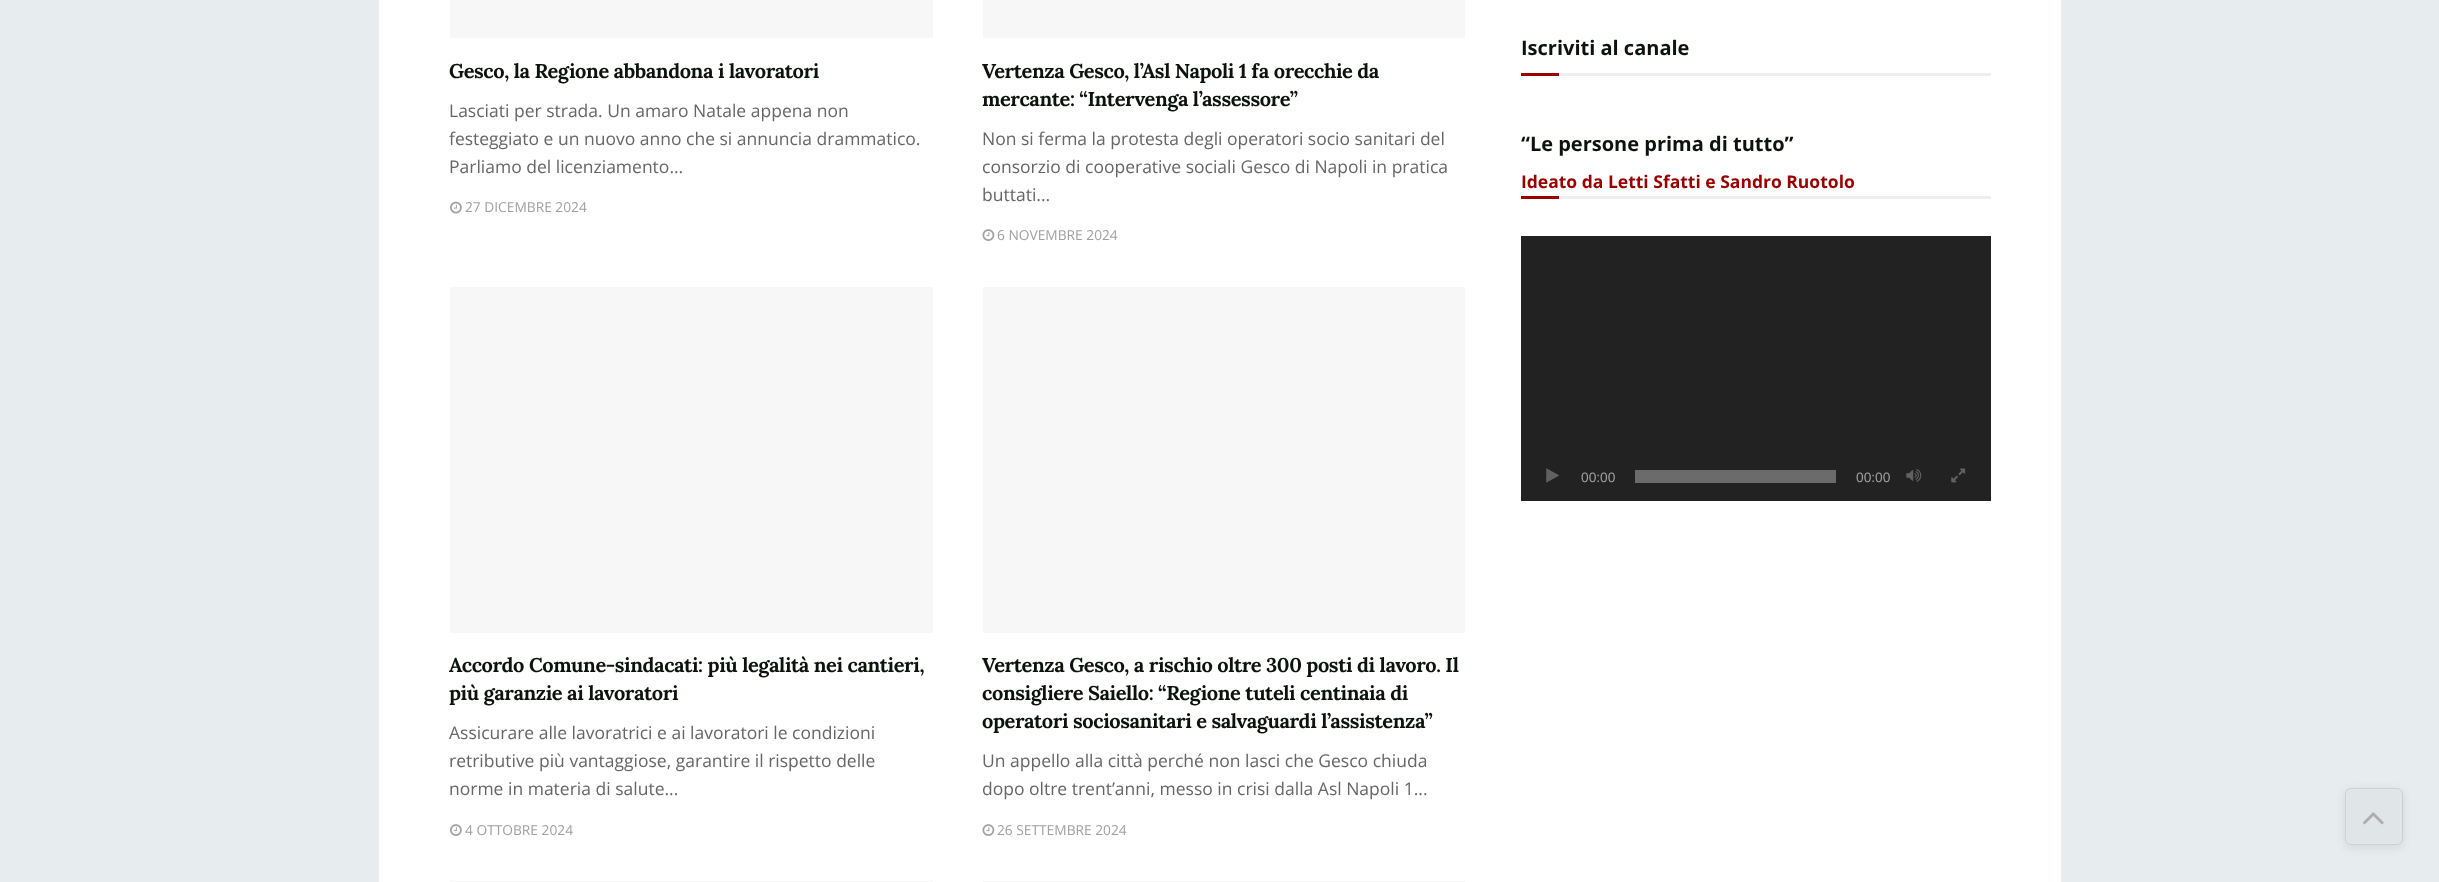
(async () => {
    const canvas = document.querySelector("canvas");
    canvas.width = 2439;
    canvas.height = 882;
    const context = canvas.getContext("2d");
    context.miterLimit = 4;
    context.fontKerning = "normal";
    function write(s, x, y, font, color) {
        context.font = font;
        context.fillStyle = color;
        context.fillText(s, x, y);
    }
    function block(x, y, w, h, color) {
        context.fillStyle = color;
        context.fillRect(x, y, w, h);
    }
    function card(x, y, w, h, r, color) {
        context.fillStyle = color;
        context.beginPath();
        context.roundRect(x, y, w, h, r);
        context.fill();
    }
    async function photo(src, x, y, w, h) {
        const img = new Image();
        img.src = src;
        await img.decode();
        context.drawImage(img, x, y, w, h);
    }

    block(0, 0, 2439, 882, "rgb(231, 236, 239)");
    block(379, 0, 1682, 882, "rgb(255, 255, 255)");
    block(450, 0, 483, 38, "rgb(247, 247, 247)");
    context.letterSpacing = "-0.4px";
    write("Gesco, la Regione abbandona i lavoratori", 449, 78, "bold 20px Lora", "rgb(12, 18, 12)");
    context.letterSpacing = "0px";
    write("Lasciati per strada. Un amaro Natale appena non", 449, 117, "17.5px Open Sans", "rgb(102, 102, 102)");
    write("festeggiato e un nuovo anno che si annuncia drammatico.", 449, 145, "17.5px Open Sans", "rgb(102, 102, 102)");
    write("Parliamo del licenziamento...", 449, 173, "17.5px Open Sans", "rgb(102, 102, 102)");
    await photo("media/1.png", 450, 201, 12, 13);
    write("27 DICEMBRE 2024", 465, 212, "13.75px Open Sans", "rgb(160, 160, 160)");
    block(983, 0, 482, 38, "rgb(247, 247, 247)");
    context.letterSpacing = "-0.4px";
    write("Vertenza Gesco, l’Asl Napoli 1 fa orecchie da", 982, 78, "bold 20px Lora", "rgb(12, 18, 12)");
    write("mercante: “Intervenga l’assessore”", 982, 106, "bold 20px Lora", "rgb(12, 18, 12)");
    context.letterSpacing = "0px";
    write("Non si ferma la protesta degli operatori socio sanitari del", 982, 145, "17.5px Open Sans", "rgb(102, 102, 102)");
    write("consorzio di cooperative sociali Gesco di Napoli in pratica", 982, 173, "17.5px Open Sans", "rgb(102, 102, 102)");
    write("buttati...", 982, 201, "17.5px Open Sans", "rgb(102, 102, 102)");
    await photo("media/2.png", 982, 229, 13, 12);
    write("6 NOVEMBRE 2024", 997, 240, "13.75px Open Sans", "rgb(160, 160, 160)");
    block(450, 288, 483, 345, "rgb(247, 247, 247)");
    block(450, 287, 482, 1, "rgb(247, 247, 247)");
    context.letterSpacing = "-0.4px";
    write("Accordo Comune-sindacati: più legalità nei cantieri,", 449, 672, "bold 20px Lora", "rgb(12, 18, 12)");
    write("più garanzie ai lavoratori", 449, 700, "bold 20px Lora", "rgb(12, 18, 12)");
    context.letterSpacing = "0px";
    write("Assicurare alle lavoratrici e ai lavoratori le condizioni", 449, 739, "17.5px Open Sans", "rgb(102, 102, 102)");
    write("retributive più vantaggiose, garantire il rispetto delle", 449, 767, "17.5px Open Sans", "rgb(102, 102, 102)");
    write("norme in materia di salute...", 449, 795, "17.5px Open Sans", "rgb(102, 102, 102)");
    await photo("media/3.png", 450, 824, 12, 12);
    write("4 OTTOBRE 2024", 465, 835, "13.75px Open Sans", "rgb(160, 160, 160)");
    block(983, 287, 482, 346, "rgb(247, 247, 247)");
    context.letterSpacing = "-0.4px";
    write("Vertenza Gesco, a rischio oltre 300 posti di lavoro. Il", 982, 672, "bold 20px Lora", "rgb(12, 18, 12)");
    write("consigliere Saiello: “Regione tuteli centinaia di", 982, 700, "bold 20px Lora", "rgb(12, 18, 12)");
    write("operatori sociosanitari e salvaguardi l’assistenza”", 982, 728, "bold 20px Lora", "rgb(12, 18, 12)");
    context.letterSpacing = "0px";
    write("Un appello alla città perché non lasci che Gesco chiuda", 982, 767, "17.5px Open Sans", "rgb(102, 102, 102)");
    write("dopo oltre trent’anni, messo in crisi dalla Asl Napoli 1...", 982, 795, "17.5px Open Sans", "rgb(102, 102, 102)");
    await photo("media/2.png", 982, 824, 13, 12);
    write("26 SETTEMBRE 2024", 997, 835, "13.75px Open Sans", "rgb(160, 160, 160)");
    block(450, 881, 483, 1, "rgb(247, 247, 247)");
    block(983, 881, 482, 1, "rgb(247, 247, 247)");
    block(1559, 73, 432, 3, "rgb(238, 238, 238)");
    write("Iscriviti al canale", 1521, 55, "bold 20px Open Sans", "rgb(12, 18, 12)");
    block(1521, 73, 38, 3, "rgb(153, 0, 0)");
    block(1559, 196, 432, 3, "rgb(238, 238, 238)");
    write("“Le persone prima di tutto”", 1521, 151, "bold 20px Open Sans", "rgb(12, 18, 12)");
    write("Ideato da Letti Sfatti e Sandro Ruotolo", 1521, 188, "bold 17.5px Open Sans", "rgb(153, 0, 0)");
    block(1521, 196, 38, 3, "rgb(153, 0, 0)");
    block(1521, 236, 470, 265, "rgb(34, 34, 34)");
    await photo("media/4.png", 1546, 468, 13, 15);
    write("00:00", 1581, 482, "13.75px Liberation Sans", "rgb(160, 160, 160)");
    block(1635, 470, 201, 13, "rgb(107, 107, 107)");
    write("00:00", 1856, 482, "13.75px Liberation Sans", "rgb(160, 160, 160)");
    await photo("media/5.png", 1906, 469, 16, 13);
    await photo("media/6.png", 1951, 468, 15, 15);
    context.save();
    context.beginPath();
    context.moveTo(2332, 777);
    context.lineTo(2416, 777);
    context.lineTo(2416, 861);
    context.lineTo(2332, 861);
    context.closePath();
    context.moveTo(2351, 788);
    context.lineTo(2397, 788);
    context.bezierCurveTo(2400.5, 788, 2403, 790.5, 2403, 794);
    context.lineTo(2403, 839);
    context.bezierCurveTo(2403, 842.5, 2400.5, 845, 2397, 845);
    context.lineTo(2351, 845);
    context.bezierCurveTo(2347.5, 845, 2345, 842.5, 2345, 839);
    context.lineTo(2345, 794);
    context.bezierCurveTo(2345, 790.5, 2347.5, 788, 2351, 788);
    context.closePath();
    context.clip("evenodd");
    context.fillStyle = "rgba(46, 47, 48, 0.1)";
    context.filter = "blur(4px)";
    context.beginPath();
    context.roundRect(2345, 790, 58, 58, 6);
    context.fill();
    context.filter = "none";
    context.restore();
    card(2345, 788, 58, 57, 6, "rgba(191, 192, 193, 0.15)");
    context.beginPath();
    context.roundRect(2346.5, 789.5, 54, 54, 4.5);
    context.strokeStyle = "rgb(228, 232, 234)";
    context.stroke();
    context.beginPath();
    context.roundRect(2345.5, 788.5, 57, 56, 5.5);
    context.strokeStyle = "rgba(46, 47, 48, 0.11)";
    context.stroke();
    await photo("media/7.png", 2363, 812, 21, 13);
})();
